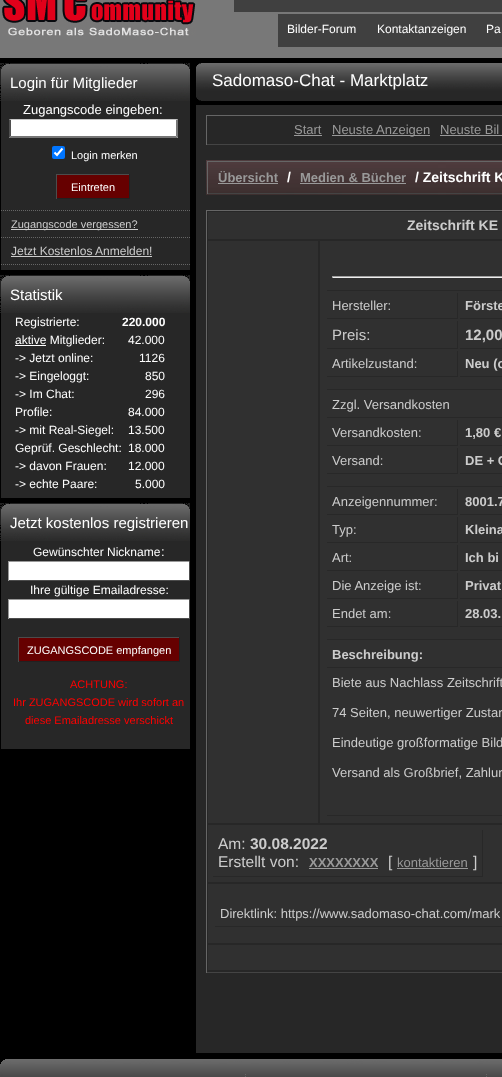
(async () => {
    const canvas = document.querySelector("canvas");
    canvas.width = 502;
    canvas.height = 1077;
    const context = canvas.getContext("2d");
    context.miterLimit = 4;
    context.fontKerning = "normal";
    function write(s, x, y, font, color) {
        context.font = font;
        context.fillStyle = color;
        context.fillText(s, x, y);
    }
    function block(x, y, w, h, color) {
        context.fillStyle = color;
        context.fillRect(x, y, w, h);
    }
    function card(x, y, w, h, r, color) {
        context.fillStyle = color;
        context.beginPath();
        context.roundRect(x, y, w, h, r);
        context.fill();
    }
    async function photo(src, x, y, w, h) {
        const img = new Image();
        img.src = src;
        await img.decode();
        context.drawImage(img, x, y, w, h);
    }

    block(0, 0, 502, 1077, "rgb(0, 0, 0)");
    block(0, 0, 502, 58, "rgb(120, 120, 120)");
    await photo("media/1.png", 2, 0, 194, 36);
    block(234, 0, 268, 12, "rgb(64, 64, 64)");
    block(278, 14, 224, 33, "rgb(64, 64, 64)");
    write("Bilder-Forum", 287, 33, "12px Liberation Sans", "rgb(254, 254, 254)");
    write("Kontaktanzeigen", 377, 33, "12px Liberation Sans", "rgb(254, 254, 254)");
    write("Pa", 486, 33, "12px Liberation Sans", "rgb(254, 254, 254)");
    block(0, 63, 190, 38, "rgb(34, 34, 34)");
    await photo("media/2.png", 0, 63, 190, 38);
    write("Login für Mitglieder", 10, 88, "15px Liberation Sans", "rgb(254, 254, 254)");
    block(1, 101, 189, 169, "rgb(39, 39, 39)");
    write("Zugangscode eingeben:", 23, 114, "13px Liberation Sans", "rgb(254, 254, 254)");
    block(9, 119, 169, 19, "rgb(255, 255, 255)");
    context.fillStyle = "rgb(198, 198, 198)";
    context.beginPath();
    context.moveTo(9, 119);
    context.lineTo(178, 119);
    context.lineTo(176, 120);
    context.lineTo(11, 120);
    context.closePath();
    context.fill();
    context.fillStyle = "rgb(118, 118, 118)";
    context.beginPath();
    context.moveTo(178, 119);
    context.lineTo(178, 138);
    context.lineTo(176, 136);
    context.lineTo(176, 120);
    context.closePath();
    context.fill();
    context.beginPath();
    context.moveTo(178, 138);
    context.lineTo(9, 138);
    context.lineTo(11, 136);
    context.lineTo(176, 136);
    context.closePath();
    context.fill();
    context.fillStyle = "rgb(79, 79, 79)";
    context.beginPath();
    context.moveTo(9, 138);
    context.lineTo(9, 119);
    context.lineTo(11, 120);
    context.lineTo(11, 136);
    context.closePath();
    context.fill();
    card(52, 146, 13, 13, 2, "rgb(0, 117, 255)");
    context.beginPath();
    context.moveTo(54.5, 152.5);
    context.lineTo(57, 155);
    context.lineTo(62.5, 148.5);
    context.strokeStyle = "rgb(255, 255, 255)";
    context.lineWidth = 2.1;
    context.stroke();
    write("Login merken", 71, 159, "11px Liberation Sans", "rgb(254, 254, 254)");
    block(57, 175, 72, 23, "rgb(102, 0, 0)");
    block(56, 174, 74, 1, "rgb(76, 76, 76)");
    block(129, 174, 1, 25, "rgb(33, 33, 33)");
    block(56, 198, 74, 1, "rgb(33, 33, 33)");
    block(56, 174, 1, 25, "rgb(76, 76, 76)");
    write("Eintreten", 71, 191, "11px Liberation Sans", "rgb(254, 254, 254)");
    context.beginPath();
    context.moveTo(1, 210.5);
    context.lineTo(190, 210.5);
    context.strokeStyle = "rgb(102, 102, 102)";
    context.lineWidth = 1;
    context.setLineDash([1, 1]);
    context.stroke();
    context.beginPath();
    context.moveTo(1, 237.5);
    context.lineTo(190, 237.5);
    context.stroke();
    block(11, 229, 127, 1, "rgb(204, 204, 204)");
    write("Zugangscode vergessen?", 11, 228, "11px Liberation Sans", "rgb(204, 204, 204)");
    context.beginPath();
    context.moveTo(1, 264.5);
    context.lineTo(190, 264.5);
    context.stroke();
    write("Jetzt Kostenlos Anmelden!", 11, 255, "12px Liberation Sans", "rgb(204, 204, 204)");
    block(11, 256, 141, 1, "rgb(204, 204, 204)");
    block(0, 275, 190, 38, "rgb(34, 34, 34)");
    await photo("media/2.png", 0, 275, 190, 38);
    write("Statistik", 10, 300, "15px Liberation Sans", "rgb(254, 254, 254)");
    block(1, 313, 189, 185, "rgb(39, 39, 39)");
    write("Registrierte:", 15, 326, "12px Liberation Sans", "rgb(254, 254, 254)");
    write("220.000", 122, 326, "bold 12px Liberation Sans", "rgb(254, 254, 254)");
    block(15, 345, 31, 1, "rgb(255, 255, 255)");
    write("aktive Mitglieder:", 15, 344, "12px Liberation Sans", "rgb(254, 254, 254)");
    write("42.000", 128, 344, "12px Liberation Sans", "rgb(254, 254, 254)");
    write("-> Jetzt online:", 15, 362, "12px Liberation Sans", "rgb(254, 254, 254)");
    write("1126", 139, 362, "12px Liberation Sans", "rgb(254, 254, 254)");
    write("-> Eingeloggt:", 15, 380, "12px Liberation Sans", "rgb(254, 254, 254)");
    write("850", 145, 380, "12px Liberation Sans", "rgb(254, 254, 254)");
    write("-> Im Chat:", 15, 398, "12px Liberation Sans", "rgb(254, 254, 254)");
    write("296", 145, 398, "12px Liberation Sans", "rgb(254, 254, 254)");
    write("Profile:", 15, 416, "12px Liberation Sans", "rgb(254, 254, 254)");
    write("84.000", 128, 416, "12px Liberation Sans", "rgb(254, 254, 254)");
    write("-> mit Real-Siegel:", 15, 434, "12px Liberation Sans", "rgb(254, 254, 254)");
    write("13.500", 128, 434, "12px Liberation Sans", "rgb(254, 254, 254)");
    write("Geprüf. Geschlecht:", 15, 452, "12px Liberation Sans", "rgb(254, 254, 254)");
    write("18.000", 128, 452, "12px Liberation Sans", "rgb(254, 254, 254)");
    write("-> davon Frauen:", 15, 470, "12px Liberation Sans", "rgb(254, 254, 254)");
    write("12.000", 128, 470, "12px Liberation Sans", "rgb(254, 254, 254)");
    write("-> echte Paare:", 15, 488, "12px Liberation Sans", "rgb(254, 254, 254)");
    write("5.000", 135, 488, "12px Liberation Sans", "rgb(254, 254, 254)");
    block(0, 503, 190, 38, "rgb(34, 34, 34)");
    await photo("media/2.png", 0, 503, 190, 38);
    write("Jetzt kostenlos registrieren", 10, 528, "15px Liberation Sans", "rgb(254, 254, 254)");
    block(1, 541, 189, 208, "rgb(39, 39, 39)");
    write("Gewünschter Nickname", 33, 556, "12px Liberation Sans", "rgb(254, 254, 254)");
    write(":", 161, 556, "13px Liberation Sans", "rgb(254, 254, 254)");
    block(9, 562, 180, 18, "rgb(255, 255, 255)");
    block(8, 561, 182, 1, "rgb(153, 153, 153)");
    block(189, 561, 1, 20, "rgb(76, 76, 76)");
    block(8, 580, 182, 1, "rgb(76, 76, 76)");
    block(8, 561, 1, 20, "rgb(153, 153, 153)");
    write("Ihre gültige Emailadresse:", 30, 594, "12px Liberation Sans", "rgb(254, 254, 254)");
    block(9, 600, 180, 18, "rgb(255, 255, 255)");
    block(8, 599, 182, 1, "rgb(153, 153, 153)");
    block(189, 599, 1, 20, "rgb(76, 76, 76)");
    block(8, 618, 182, 1, "rgb(76, 76, 76)");
    block(8, 599, 1, 20, "rgb(153, 153, 153)");
    block(19, 638, 160, 23, "rgb(102, 0, 0)");
    block(18, 637, 162, 1, "rgb(76, 76, 76)");
    block(179, 637, 1, 25, "rgb(33, 33, 33)");
    block(18, 661, 162, 1, "rgb(33, 33, 33)");
    block(18, 637, 1, 25, "rgb(76, 76, 76)");
    write("ZUGANGSCODE empfangen", 27, 654, "11px Liberation Sans", "rgb(254, 254, 254)");
    write("ACHTUNG:", 70, 688, "11px Liberation Sans", "rgb(255, 0, 0)");
    write("Ihr ZUGANGSCODE wird sofort an", 13, 706, "11px Liberation Sans", "rgb(255, 0, 0)");
    write("diese Emailadresse verschickt", 25, 724, "11px Liberation Sans", "rgb(255, 0, 0)");
    await photo("media/3.png", 195, 63, 307, 41);
    write("Sadomaso-Chat - Marktplatz", 212, 86, "17px Liberation Sans", "rgb(254, 254, 254)");
    block(196, 105, 306, 948, "rgb(39, 39, 39)");
    block(206, 115, 296, 1, "rgb(102, 102, 102)");
    block(206, 144, 296, 1, "rgb(68, 68, 68)");
    block(206, 115, 1, 30, "rgb(102, 102, 102)");
    write("Start", 294, 134, "13px Liberation Sans", "rgb(153, 153, 153)");
    block(294, 135, 28, 1, "rgb(153, 153, 153)");
    block(332, 135, 98, 1, "rgb(153, 153, 153)");
    write("Neuste Anzeigen", 332, 134, "13px Liberation Sans", "rgb(153, 153, 153)");
    write("Neuste Bil", 440, 134, "13px Liberation Sans", "rgb(153, 153, 153)");
    block(440, 135, 62, 1, "rgb(153, 153, 153)");
    await photo("media/4.png", 206, 160, 296, 35);
    block(207, 161, 295, 1, "rgb(102, 102, 102)");
    block(207, 193, 295, 1, "rgb(68, 68, 68)");
    block(207, 161, 1, 33, "rgb(102, 102, 102)");
    write("Übersicht", 218, 182, "bold 13px Liberation Sans", "rgb(153, 153, 153)");
    block(218, 183, 60, 1, "rgb(153, 153, 153)");
    write("/", 287, 182, "bold 14px Liberation Sans", "rgb(254, 254, 254)");
    write("Medien & Bücher", 300, 182, "bold 13px Liberation Sans", "rgb(153, 153, 153)");
    block(300, 183, 106, 1, "rgb(153, 153, 153)");
    write("/ Zeitschrift K", 415, 182, "bold 14px Liberation Sans", "rgb(254, 254, 254)");
    block(206, 210, 296, 1, "rgb(102, 102, 102)");
    block(206, 972, 296, 1, "rgb(68, 68, 68)");
    block(206, 210, 1, 763, "rgb(102, 102, 102)");
    block(208, 212, 294, 27, "rgb(48, 48, 48)");
    write("Zeitschrift KE", 407, 230, "bold 14px Liberation Sans", "rgb(204, 204, 204)");
    block(208, 241, 110, 582, "rgb(48, 48, 48)");
    block(320, 241, 182, 582, "rgb(48, 48, 48)");
    block(327, 290, 175, 1, "rgb(40, 40, 40)");
    block(332, 276, 170, 1, "rgb(159, 159, 159)");
    block(332, 277, 170, 1, "rgb(238, 238, 238)");
    block(332, 276, 1, 2, "rgb(159, 159, 159)");
    block(457, 293, 1, 26, "rgb(40, 40, 40)");
    block(327, 318, 131, 1, "rgb(40, 40, 40)");
    write("Hersteller:", 332, 310, "13px Liberation Sans", "rgb(204, 204, 204)");
    block(460, 318, 42, 1, "rgb(40, 40, 40)");
    write("Förste", 465, 310, "bold 13px Liberation Sans", "rgb(204, 204, 204)");
    block(457, 321, 1, 28, "rgb(40, 40, 40)");
    block(327, 348, 131, 1, "rgb(40, 40, 40)");
    write("Preis:", 332, 340, "15px Liberation Sans", "rgb(204, 204, 204)");
    block(460, 348, 42, 1, "rgb(40, 40, 40)");
    write("12,00", 465, 340, "bold 15px Liberation Sans", "rgb(204, 204, 204)");
    block(457, 351, 1, 26, "rgb(40, 40, 40)");
    block(327, 376, 131, 1, "rgb(40, 40, 40)");
    write("Artikelzustand:", 332, 368, "13px Liberation Sans", "rgb(204, 204, 204)");
    block(460, 376, 42, 1, "rgb(40, 40, 40)");
    write("Neu (o", 465, 368, "bold 13px Liberation Sans", "rgb(204, 204, 204)");
    block(327, 389, 175, 1, "rgb(40, 40, 40)");
    block(327, 417, 175, 1, "rgb(40, 40, 40)");
    write("Zzgl. Versandkosten", 332, 409, "13px Liberation Sans", "rgb(204, 204, 204)");
    block(457, 420, 1, 26, "rgb(40, 40, 40)");
    block(327, 445, 131, 1, "rgb(40, 40, 40)");
    write("Versandkosten:", 332, 437, "13px Liberation Sans", "rgb(204, 204, 204)");
    block(460, 445, 42, 1, "rgb(40, 40, 40)");
    write("1,80 €", 465, 437, "bold 13px Liberation Sans", "rgb(204, 204, 204)");
    block(457, 448, 1, 26, "rgb(40, 40, 40)");
    block(327, 473, 131, 1, "rgb(40, 40, 40)");
    write("Versand:", 332, 465, "13px Liberation Sans", "rgb(204, 204, 204)");
    block(460, 473, 42, 1, "rgb(40, 40, 40)");
    write("DE + C", 465, 465, "bold 13px Liberation Sans", "rgb(204, 204, 204)");
    block(327, 486, 175, 1, "rgb(40, 40, 40)");
    block(457, 489, 1, 26, "rgb(40, 40, 40)");
    block(327, 514, 131, 1, "rgb(40, 40, 40)");
    write("Anzeigennummer:", 332, 506, "13px Liberation Sans", "rgb(204, 204, 204)");
    block(460, 514, 42, 1, "rgb(40, 40, 40)");
    write("8001.7", 465, 506, "bold 13px Liberation Sans", "rgb(204, 204, 204)");
    block(457, 517, 1, 26, "rgb(40, 40, 40)");
    block(327, 542, 131, 1, "rgb(40, 40, 40)");
    write("Typ:", 332, 534, "13px Liberation Sans", "rgb(204, 204, 204)");
    block(460, 542, 42, 1, "rgb(40, 40, 40)");
    write("Kleina", 465, 534, "bold 13px Liberation Sans", "rgb(204, 204, 204)");
    block(457, 545, 1, 26, "rgb(40, 40, 40)");
    block(327, 570, 131, 1, "rgb(40, 40, 40)");
    write("Art:", 332, 562, "13px Liberation Sans", "rgb(204, 204, 204)");
    block(460, 570, 42, 1, "rgb(40, 40, 40)");
    write("Ich bi", 465, 562, "bold 13px Liberation Sans", "rgb(204, 204, 204)");
    block(457, 573, 1, 26, "rgb(40, 40, 40)");
    block(327, 598, 131, 1, "rgb(40, 40, 40)");
    write("Die Anzeige ist:", 332, 590, "13px Liberation Sans", "rgb(204, 204, 204)");
    block(460, 598, 42, 1, "rgb(40, 40, 40)");
    write("Privat", 465, 590, "bold 13px Liberation Sans", "rgb(204, 204, 204)");
    block(457, 601, 1, 26, "rgb(40, 40, 40)");
    block(327, 626, 131, 1, "rgb(40, 40, 40)");
    write("Endet am:", 332, 618, "13px Liberation Sans", "rgb(204, 204, 204)");
    block(460, 626, 42, 1, "rgb(40, 40, 40)");
    write("28.03.", 465, 618, "bold 13px Liberation Sans", "rgb(204, 204, 204)");
    block(327, 639, 175, 1, "rgb(40, 40, 40)");
    block(327, 667, 175, 1, "rgb(40, 40, 40)");
    write("Beschreibung:", 332, 659, "bold 13px Liberation Sans", "rgb(204, 204, 204)");
    block(327, 815, 175, 1, "rgb(40, 40, 40)");
    write("Biete aus Nachlass Zeitschrift", 332, 687, "13px Liberation Sans", "rgb(204, 204, 204)");
    write("74 Seiten, neuwertiger Zustan", 332, 717, "13px Liberation Sans", "rgb(204, 204, 204)");
    write("Eindeutige großformatige Bild", 332, 747, "13px Liberation Sans", "rgb(204, 204, 204)");
    write("Versand als Großbrief, Zahlun", 332, 777, "13px Liberation Sans", "rgb(204, 204, 204)");
    block(208, 825, 294, 57, "rgb(48, 48, 48)");
    block(482, 830, 1, 47, "rgb(40, 40, 40)");
    block(213, 876, 270, 1, "rgb(40, 40, 40)");
    write("Am:", 218, 849, "15.5px Liberation Sans", "rgb(204, 204, 204)");
    write("30.08.2022", 250, 849, "bold 15.5px Liberation Sans", "rgb(204, 204, 204)");
    write("Erstellt von:", 218, 867, "15.5px Liberation Sans", "rgb(204, 204, 204)");
    write("XXXXXXXX", 309, 867, "bold 13px Liberation Sans", "rgb(153, 153, 153)");
    block(309, 868, 69, 1, "rgb(153, 153, 153)");
    write("[", 388, 867, "15.5px Liberation Sans", "rgb(204, 204, 204)");
    write("kontaktieren", 397, 867, "13px Liberation Sans", "rgb(153, 153, 153)");
    block(397, 868, 71, 1, "rgb(153, 153, 153)");
    write("]", 473, 867, "15.5px Liberation Sans", "rgb(204, 204, 204)");
    block(208, 884, 294, 59, "rgb(48, 48, 48)");
    block(215, 926, 287, 1, "rgb(40, 40, 40)");
    write("Direktlink: https://www.sadomaso-chat.com/mark", 220, 918, "13px Liberation Sans", "rgb(204, 204, 204)");
    block(208, 945, 294, 25, "rgb(48, 48, 48)");
    await photo("media/5.png", 0, 1059, 502, 18);
    context.beginPath();
    context.moveTo(245.5, 1074);
    context.lineTo(245.5, 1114);
    context.stroke();
    context.beginPath();
    context.moveTo(486.5, 1074);
    context.lineTo(486.5, 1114);
    context.stroke();
})();
